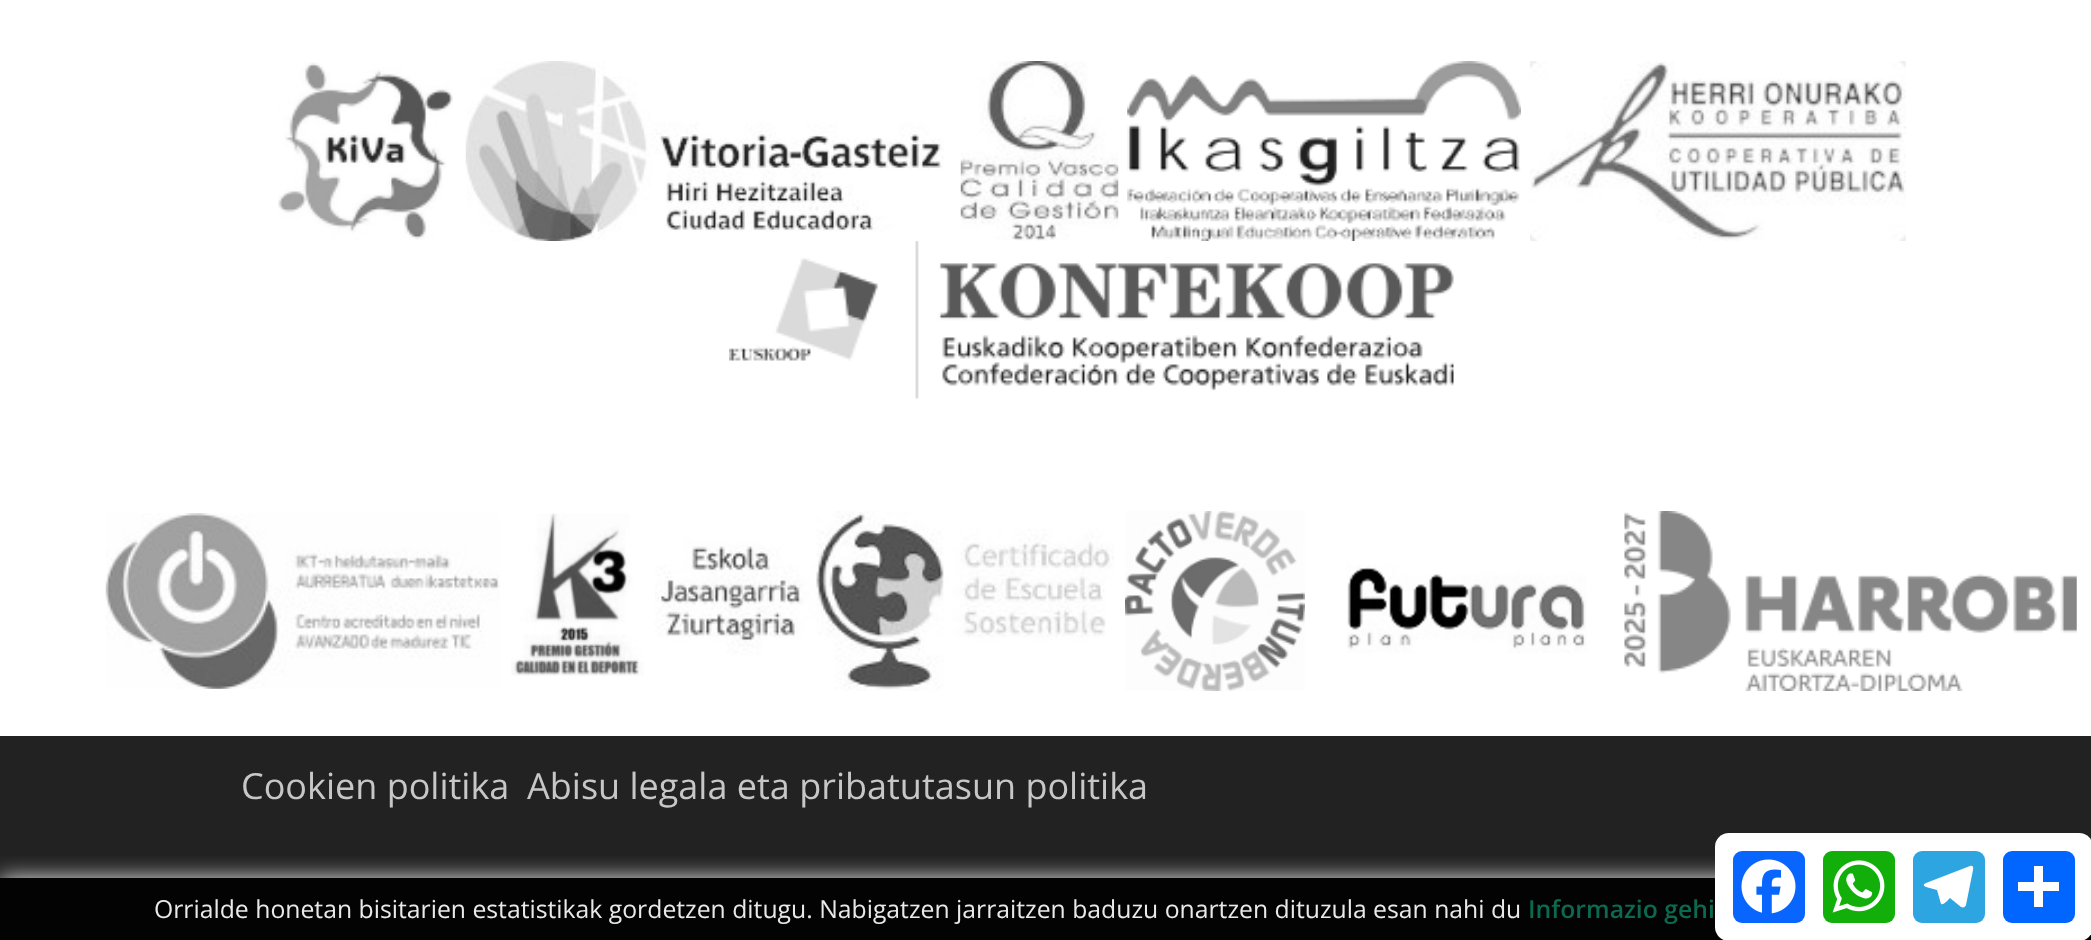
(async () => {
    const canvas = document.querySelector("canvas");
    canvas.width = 2091;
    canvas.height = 940;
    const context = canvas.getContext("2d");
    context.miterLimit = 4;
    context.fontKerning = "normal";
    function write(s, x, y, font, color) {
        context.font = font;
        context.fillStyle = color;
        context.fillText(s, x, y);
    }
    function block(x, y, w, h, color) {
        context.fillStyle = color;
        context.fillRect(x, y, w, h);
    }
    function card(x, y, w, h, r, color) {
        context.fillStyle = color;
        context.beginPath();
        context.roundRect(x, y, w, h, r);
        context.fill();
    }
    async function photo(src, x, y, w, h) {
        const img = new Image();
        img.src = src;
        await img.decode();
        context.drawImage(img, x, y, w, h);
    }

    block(0, 0, 2091, 940, "rgb(255, 255, 255)");
    await photo("media/1.png", 278, 62, 175, 178);
    await photo("media/2.png", 465, 61, 479, 180);
    await photo("media/3.png", 960, 61, 159, 180);
    await photo("media/4.png", 1127, 61, 394, 180);
    await photo("media/5.png", 1530, 61, 376, 180);
    await photo("media/6.png", 729, 241, 725, 158);
    await photo("media/7.png", 105, 513, 395, 176);
    await photo("media/8.png", 511, 513, 133, 163);
    await photo("media/9.png", 655, 511, 459, 180);
    await photo("media/10.png", 1125, 511, 180, 180);
    await photo("media/11.png", 1347, 565, 240, 88);
    await photo("media/12.png", 1624, 511, 453, 180);
    block(0, 736, 2091, 204, "rgb(34, 34, 34)");
    write("Cookien politika", 241, 799, "36px Open Sans", "rgb(199, 199, 199)");
    write("Abisu legala eta pribatutasun politika", 527, 799, "36px Open Sans", "rgb(199, 199, 199)");
    context.save();
    context.beginPath();
    context.rect(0, 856, 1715, 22);
    context.clip();
    context.fillStyle = "rgba(255, 255, 255, 0.9)";
    context.filter = "blur(11px)";
    context.beginPath();
    context.rect(0, 878, 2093, 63);
    context.fill();
    context.filter = "none";
    context.restore();
    block(0, 878, 2091, 62, "rgba(0, 0, 0, 0.9)");
    card(1715, 833, 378, 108, 14, "rgb(255, 255, 255)");
    card(1733, 851, 72, 72, 9, "rgb(8, 102, 255)");
    await photo("media/13.png", 1741, 859, 55, 55);
    card(1823, 851, 72, 72, 9, "rgb(18, 175, 10)");
    await photo("media/14.png", 1832, 860, 53, 53);
    card(1913, 851, 72, 72, 9, "rgb(44, 165, 224)");
    context.fillStyle = "rgb(255, 255, 255)";
    context.beginPath();
    context.moveTo(1970, 866);
    context.lineTo(1926, 883);
    context.bezierCurveTo(1923, 884, 1923, 886, 1926, 887);
    context.lineTo(1937, 890);
    context.lineTo(1941, 904);
    context.bezierCurveTo(1943, 906, 1949, 899, 1950, 898);
    context.lineTo(1961, 907);
    context.bezierCurveTo(1964, 908, 1965, 907, 1966, 905);
    context.lineTo(1973, 870);
    context.bezierCurveTo(1974, 866, 1972, 865, 1970, 866);
    context.closePath();
    context.fill();
    card(2003, 851, 72, 72, 9, "rgb(1, 102, 255)");
    block(2034, 866, 9, 41, "rgb(255, 255, 255)");
    block(2018, 882, 41, 9, "rgb(255, 255, 255)");
    write("Orrialde honetan bisitarien estatistikak gordetzen ditugu. Nabigatzen jarraitzen baduzu onartzen dituzula esan nahi du", 154, 918, "24.75px Open Sans", "rgb(233, 233, 233)");
    write("Informazio gehi", 1528, 918, "600 24.75px Open Sans", "rgb(11, 105, 79)");
})();
